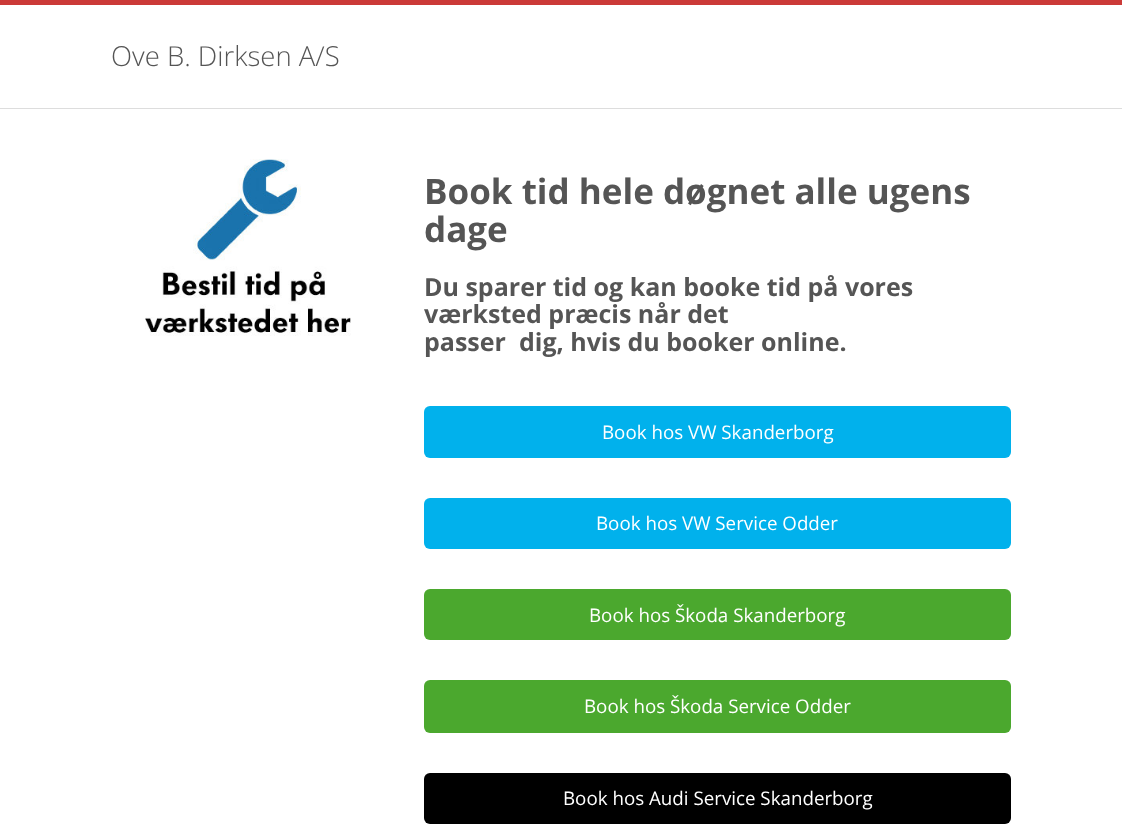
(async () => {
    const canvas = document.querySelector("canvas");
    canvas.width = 1122;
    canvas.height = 825;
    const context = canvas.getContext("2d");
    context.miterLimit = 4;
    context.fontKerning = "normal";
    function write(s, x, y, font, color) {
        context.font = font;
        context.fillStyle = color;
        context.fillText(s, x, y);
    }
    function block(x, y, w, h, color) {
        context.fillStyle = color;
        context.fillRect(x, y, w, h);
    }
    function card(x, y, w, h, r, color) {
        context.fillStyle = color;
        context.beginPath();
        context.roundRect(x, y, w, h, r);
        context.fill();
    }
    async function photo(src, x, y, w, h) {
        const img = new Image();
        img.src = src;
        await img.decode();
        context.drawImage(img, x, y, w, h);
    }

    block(0, 0, 1122, 825, "rgb(255, 255, 255)");
    block(0, 0, 1122, 5, "rgb(203, 58, 56)");
    block(0, 108, 1122, 1, "rgb(221, 221, 221)");
    write("Ove B. Dirksen A/S", 111, 66, "300 27.5px Open Sans", "rgb(85, 85, 85)");
    await photo("media/1.png", 145, 159, 206, 177);
    write("Book tid hele døgnet alle ugens", 424, 204, "bold 35px Open Sans", "rgb(85, 85, 85)");
    write("dage", 424, 242, "bold 35px Open Sans", "rgb(85, 85, 85)");
    write("Du sparer tid og kan booke tid på vores", 424, 296, "bold 25px Open Sans", "rgb(85, 85, 85)");
    write("værksted præcis når det", 424, 323, "bold 25px Open Sans", "rgb(85, 85, 85)");
    write("passer", 424, 351, "bold 25px Open Sans", "rgb(85, 85, 85)");
    write("dig, hvis du booker online.", 519, 351, "bold 25px Open Sans", "rgb(85, 85, 85)");
    card(424, 406, 587, 52, 6, "rgb(1, 177, 236)");
    write("Book hos VW Skanderborg", 602, 439, "18.75px Open Sans", "rgb(255, 255, 255)");
    card(424, 498, 587, 51, 6, "rgb(1, 177, 236)");
    write("Book hos VW Service Odder", 596, 530, "18.75px Open Sans", "rgb(255, 255, 255)");
    card(424, 589, 587, 51, 6, "rgb(75, 168, 46)");
    write("Book hos Škoda Skanderborg", 589, 622, "18.75px Open Sans", "rgb(255, 255, 255)");
    card(424, 680, 587, 53, 6, "rgb(75, 168, 46)");
    write("Book hos Škoda Service Odder", 584, 713, "18.75px Open Sans", "rgb(255, 255, 255)");
    card(424, 773, 587, 51, 6, "rgb(0, 0, 0)");
    write("Book hos Audi Service Skanderborg", 563, 805, "18.75px Open Sans", "rgb(255, 255, 255)");
})();
